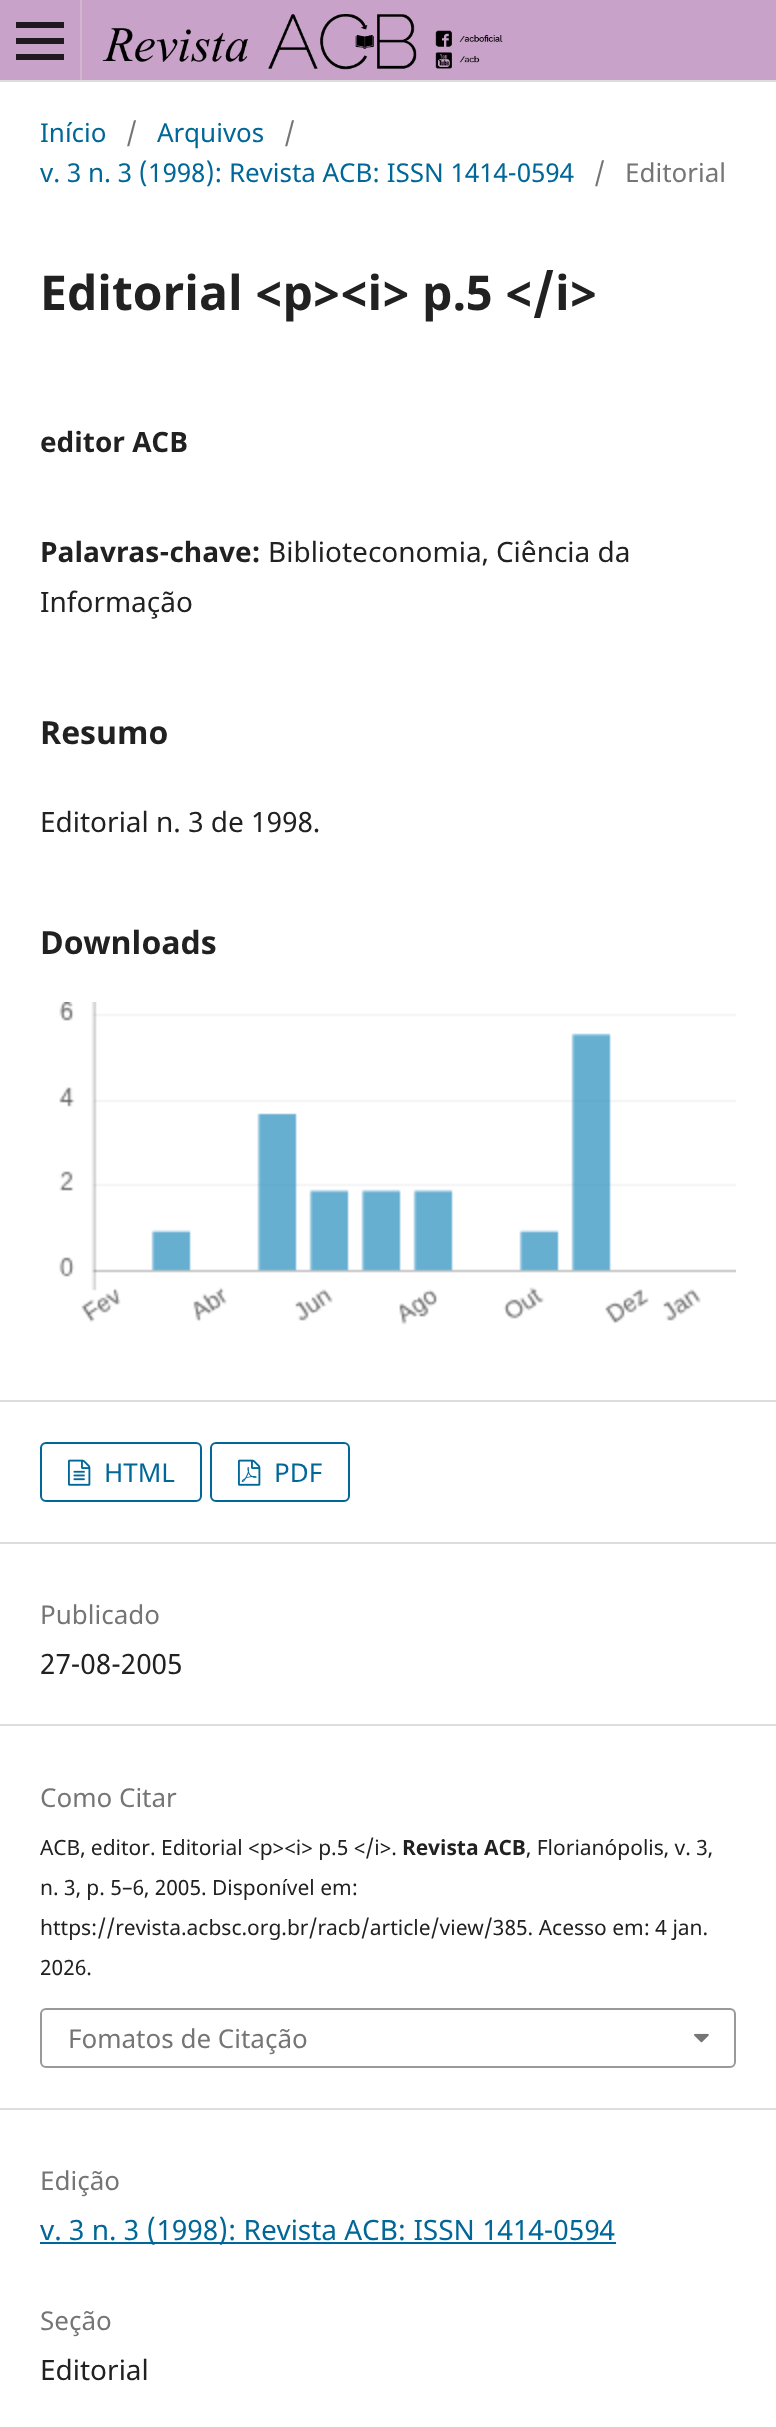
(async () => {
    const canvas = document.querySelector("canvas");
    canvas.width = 776;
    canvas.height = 2427;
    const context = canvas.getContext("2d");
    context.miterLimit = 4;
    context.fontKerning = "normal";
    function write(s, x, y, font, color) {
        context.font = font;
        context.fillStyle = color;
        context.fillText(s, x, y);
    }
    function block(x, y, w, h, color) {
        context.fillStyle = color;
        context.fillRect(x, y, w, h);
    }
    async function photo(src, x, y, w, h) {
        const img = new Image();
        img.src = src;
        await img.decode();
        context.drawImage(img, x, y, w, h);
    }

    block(0, 0, 776, 2427, "rgb(255, 255, 255)");
    block(0, 0, 776, 80, "rgb(200, 162, 200)");
    block(0, 80, 776, 2, "rgb(221, 221, 221)");
    block(80, 0, 2, 80, "rgb(211, 181, 211)");
    block(16, 54, 48, 6, "rgb(32, 26, 32)");
    block(16, 22, 48, 6, "rgb(32, 26, 32)");
    block(16, 38, 48, 6, "rgb(32, 26, 32)");
    await photo("media/1.png", 102, 14, 401, 56);
    write("Início", 40, 142, "26px Noto Sans", "rgb(0, 103, 152)");
    write("/", 126, 142, "26px Noto Sans", "rgb(117, 117, 117)");
    write("Arquivos", 157, 142, "26px Noto Sans", "rgb(0, 103, 152)");
    write("/", 284, 142, "26px Noto Sans", "rgb(117, 117, 117)");
    write("v. 3 n. 3 (1998): Revista ACB: ISSN 1414-0594", 40, 182, "26px Noto Sans", "rgb(0, 103, 152)");
    write("/", 594, 182, "26px Noto Sans", "rgb(117, 117, 117)");
    write("Editorial", 625, 182, "26px Noto Sans", "rgb(117, 117, 117)");
    write("Editorial <p><i> p.5 <\/i>", 40, 310, "bold 48px Noto Sans", "rgb(33, 33, 33)");
    write("editor ACB", 40, 452, "bold 28px Noto Sans", "rgb(33, 33, 33)");
    write("Palavras-chave:", 40, 562, "bold 28px Noto Sans", "rgb(33, 33, 33)");
    write("Biblioteconomia, Ciência da", 268, 562, "28px Noto Sans", "rgb(33, 33, 33)");
    write("Informação", 40, 612, "28px Noto Sans", "rgb(33, 33, 33)");
    write("Resumo", 40, 744, "bold 32px Noto Sans", "rgb(33, 33, 33)");
    write("Editorial n. 3 de 1998.", 40, 832, "28px Noto Sans", "rgb(33, 33, 33)");
    write("Downloads", 40, 954, "bold 32px Noto Sans", "rgb(33, 33, 33)");
    await photo("media/2.png", 59, 1002, 677, 323);
    block(0, 1400, 776, 2, "rgb(221, 221, 221)");
    block(0, 1542, 776, 2, "rgb(221, 221, 221)");
    context.beginPath();
    context.roundRect(41, 1443, 160, 58, 5);
    context.strokeStyle = "rgb(0, 103, 152)";
    context.lineWidth = 2;
    context.stroke();
    await photo("media/3.png", 68, 1459, 23, 27);
    write("HTML", 104, 1482, "26px Noto Sans", "rgb(0, 103, 152)");
    context.beginPath();
    context.roundRect(211, 1443, 138, 58, 5);
    context.stroke();
    await photo("media/4.png", 238, 1459, 23, 27);
    write("PDF", 274, 1482, "26px Noto Sans", "rgb(0, 103, 152)");
    block(0, 1724, 776, 2, "rgb(221, 221, 221)");
    write("Publicado", 40, 1624, "26px Noto Sans", "rgb(117, 117, 117)");
    write("27-08-2005", 40, 1674, "28px Noto Sans", "rgb(33, 33, 33)");
    block(0, 2108, 776, 2, "rgb(221, 221, 221)");
    write("Como Citar", 40, 1807, "26px Noto Sans", "rgb(117, 117, 117)");
    write("ACB, editor. Editorial <p><i> p.5 <\/i>.", 40, 1855, "21px Noto Sans", "rgb(33, 33, 33)");
    write("Revista ACB", 402, 1855, "bold 21px Noto Sans", "rgb(33, 33, 33)");
    write(", Florianópolis, v. 3,", 526, 1855, "21px Noto Sans", "rgb(33, 33, 33)");
    write("n. 3, p. 5–6, 2005. Disponível em:", 40, 1895, "21px Noto Sans", "rgb(33, 33, 33)");
    write("https://revista.acbsc.org.br/racb/article/view/385. Acesso em: 4 jan.", 40, 1935, "21px Noto Sans", "rgb(33, 33, 33)");
    write("2026.", 40, 1975, "21px Noto Sans", "rgb(33, 33, 33)");
    context.beginPath();
    context.roundRect(41, 2009, 694, 58, 5);
    context.strokeStyle = "rgb(153, 153, 153)";
    context.stroke();
    write("Fomatos de Citação", 68, 2048, "26px Noto Sans", "rgb(117, 117, 117)");
    await photo("media/5.png", 694, 2033, 15, 10);
    write("Edição", 40, 2190, "26px Noto Sans", "rgb(117, 117, 117)");
    block(40, 2242, 576, 2, "rgb(0, 103, 152)");
    write("v. 3 n. 3 (1998): Revista ACB: ISSN 1414-0594", 40, 2240, "28px Noto Sans", "rgb(0, 103, 152)");
    write("Seção", 40, 2330, "26px Noto Sans", "rgb(117, 117, 117)");
    write("Editorial", 40, 2380, "28px Noto Sans", "rgb(33, 33, 33)");
})();
